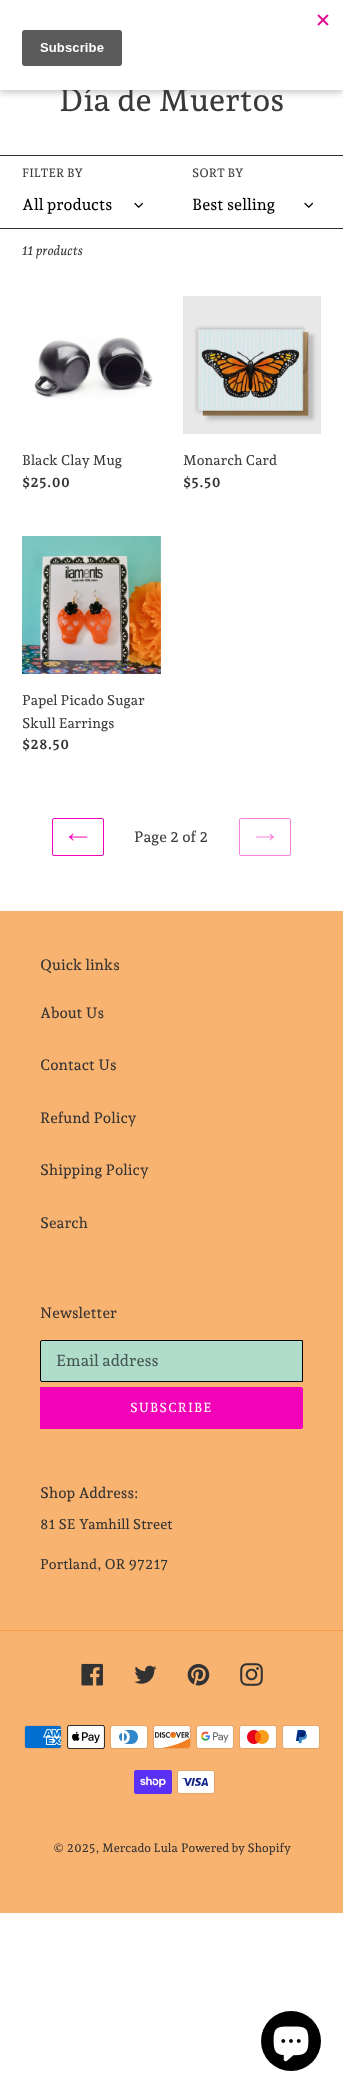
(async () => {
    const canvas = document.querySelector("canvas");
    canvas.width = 343;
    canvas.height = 2092;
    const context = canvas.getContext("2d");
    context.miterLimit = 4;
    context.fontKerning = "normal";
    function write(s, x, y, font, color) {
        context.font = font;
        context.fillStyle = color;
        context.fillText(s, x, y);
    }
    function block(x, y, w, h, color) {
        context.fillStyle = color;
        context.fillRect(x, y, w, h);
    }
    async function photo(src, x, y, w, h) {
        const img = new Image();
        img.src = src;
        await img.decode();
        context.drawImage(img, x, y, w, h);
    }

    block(0, 0, 343, 2092, "rgb(255, 255, 255)");
    context.fillStyle = "rgba(0, 0, 0, 0.2)";
    context.filter = "blur(3px)";
    context.beginPath();
    context.rect(0, 3, 343, 90);
    context.fill();
    context.filter = "none";
    write("Día de Muertos", 59, 111, "500 32px Andada Pro", "rgb(58, 58, 58)");
    block(0, 0, 343, 90, "rgb(255, 255, 255)");
    await photo("media/1.png", 22, 14, 307, 52);
    block(0, 155, 343, 1, "rgb(51, 50, 50)");
    write("FILTER BY", 22, 177, "500 12px Andada Pro", "rgb(58, 58, 58)");
    write("All products", 22, 210, "500 16px Andada Pro", "rgb(0, 0, 0)");
    await photo("media/2.png", 134, 202, 9, 6);
    write("SORT BY", 192, 177, "500 12px Andada Pro", "rgb(58, 58, 58)");
    write("Best selling", 192, 210, "500 16px Andada Pro", "rgb(0, 0, 0)");
    await photo("media/2.png", 304, 202, 9, 6);
    block(0, 228, 343, 1, "rgb(51, 50, 50)");
    write("11 products", 22, 255, "italic 500 13px Andada Pro", "rgb(58, 58, 58)");
    await photo("media/3.png", 34, 337, 119, 62);
    write("Black Clay Mug", 22, 465, "500 14px Andada Pro", "rgb(58, 58, 58)");
    write("$25.00", 22, 487, "bold 14px Andada Pro", "rgb(51, 50, 50)");
    await photo("media/4.png", 183, 296, 138, 138);
    write("Monarch Card", 183, 465, "500 14px Andada Pro", "rgb(58, 58, 58)");
    write("$5.50", 183, 487, "bold 14px Andada Pro", "rgb(51, 50, 50)");
    await photo("media/5.png", 22, 536, 139, 138);
    write("Papel Picado Sugar", 22, 705, "500 14px Andada Pro", "rgb(58, 58, 58)");
    write("Skull Earrings", 22, 728, "500 14px Andada Pro", "rgb(58, 58, 58)");
    write("$28.50", 22, 749, "bold 14px Andada Pro", "rgb(51, 50, 50)");
    context.beginPath();
    context.roundRect(52.5, 818.5, 51, 37, 1.5);
    context.strokeStyle = "rgb(243, 3, 183)";
    context.stroke();
    await photo("media/6.png", 68, 833, 20, 8);
    write("Page 2 of 2", 134, 842, "500 15px Andada Pro", "rgb(58, 58, 58)");
    context.beginPath();
    context.roundRect(239.5, 818.5, 51, 37, 1.5);
    context.strokeStyle = "rgb(249, 129, 219)";
    context.stroke();
    await photo("media/7.png", 255, 833, 20, 8);
    block(0, 911, 343, 1002, "rgb(249, 179, 113)");
    write("Quick links", 40, 970, "500 15px Andada Pro", "rgb(51, 50, 50)");
    write("About Us", 40, 1018, "500 15px Andada Pro", "rgb(51, 50, 50)");
    write("Contact Us", 40, 1070, "500 15px Andada Pro", "rgb(51, 50, 50)");
    write("Refund Policy", 40, 1123, "500 15px Andada Pro", "rgb(51, 50, 50)");
    write("Shipping Policy", 40, 1175, "500 15px Andada Pro", "rgb(51, 50, 50)");
    write("Search", 40, 1228, "500 15px Andada Pro", "rgb(51, 50, 50)");
    write("Newsletter", 40, 1318, "500 15px Andada Pro", "rgb(51, 50, 50)");
    context.fillStyle = "rgb(175, 220, 203)";
    context.beginPath();
    context.roundRect(40.5, 1340.5, 262, 41, [1.5, 0, 0, 1.5]);
    context.fill();
    context.strokeStyle = "rgb(0, 0, 0)";
    context.stroke();
    write("Email address", 56, 1366, "500 16px Andada Pro", "rgb(70, 88, 81)");
    context.fillStyle = "rgb(243, 3, 183)";
    context.beginPath();
    context.roundRect(40, 1387, 263, 42, [0, 2, 2, 0]);
    context.fill();
    context.letterSpacing = "1px";
    write("SUBSCRIBE", 130, 1412, "500 13px Andada Pro", "rgb(255, 255, 255)");
    context.letterSpacing = "0px";
    write("Shop Address:", 40, 1498, "500 15px Andada Pro", "rgb(51, 50, 50)");
    write("81 SE Yamhill Street", 40, 1529, "500 14px Andada Pro", "rgb(51, 50, 50)");
    write("Portland, OR 97217", 40, 1569, "500 14px Andada Pro", "rgb(51, 50, 50)");
    block(0, 1630, 343, 1, "rgb(247, 153, 64)");
    await photo("media/8.png", 81, 1663, 22, 23);
    await photo("media/9.png", 134, 1665, 23, 19);
    await photo("media/10.png", 187, 1663, 23, 23);
    await photo("media/11.png", 240, 1663, 23, 23);
    await photo("media/12.png", 24, 1725, 38, 24);
    await photo("media/13.png", 67, 1725, 38, 24);
    await photo("media/14.png", 110, 1725, 38, 24);
    await photo("media/15.png", 153, 1725, 38, 24);
    await photo("media/16.png", 196, 1725, 38, 24);
    await photo("media/17.png", 239, 1725, 38, 24);
    await photo("media/18.png", 282, 1725, 38, 24);
    await photo("media/19.png", 134, 1770, 38, 24);
    await photo("media/20.png", 177, 1770, 38, 24);
    write("© 2025, Mercado Lula", 53, 1852, "500 12px Andada Pro", "rgb(51, 50, 50)");
    write("Powered by Shopify", 181, 1852, "500 12px Andada Pro", "rgb(51, 50, 50)");
    context.fillStyle = "rgb(0, 0, 0)";
    context.beginPath();
    context.arc(291, 2041, 30, 0, Math.PI * 2);
    context.fill();
    await photo("media/21.png", 273, 2026, 36, 36);
})();
